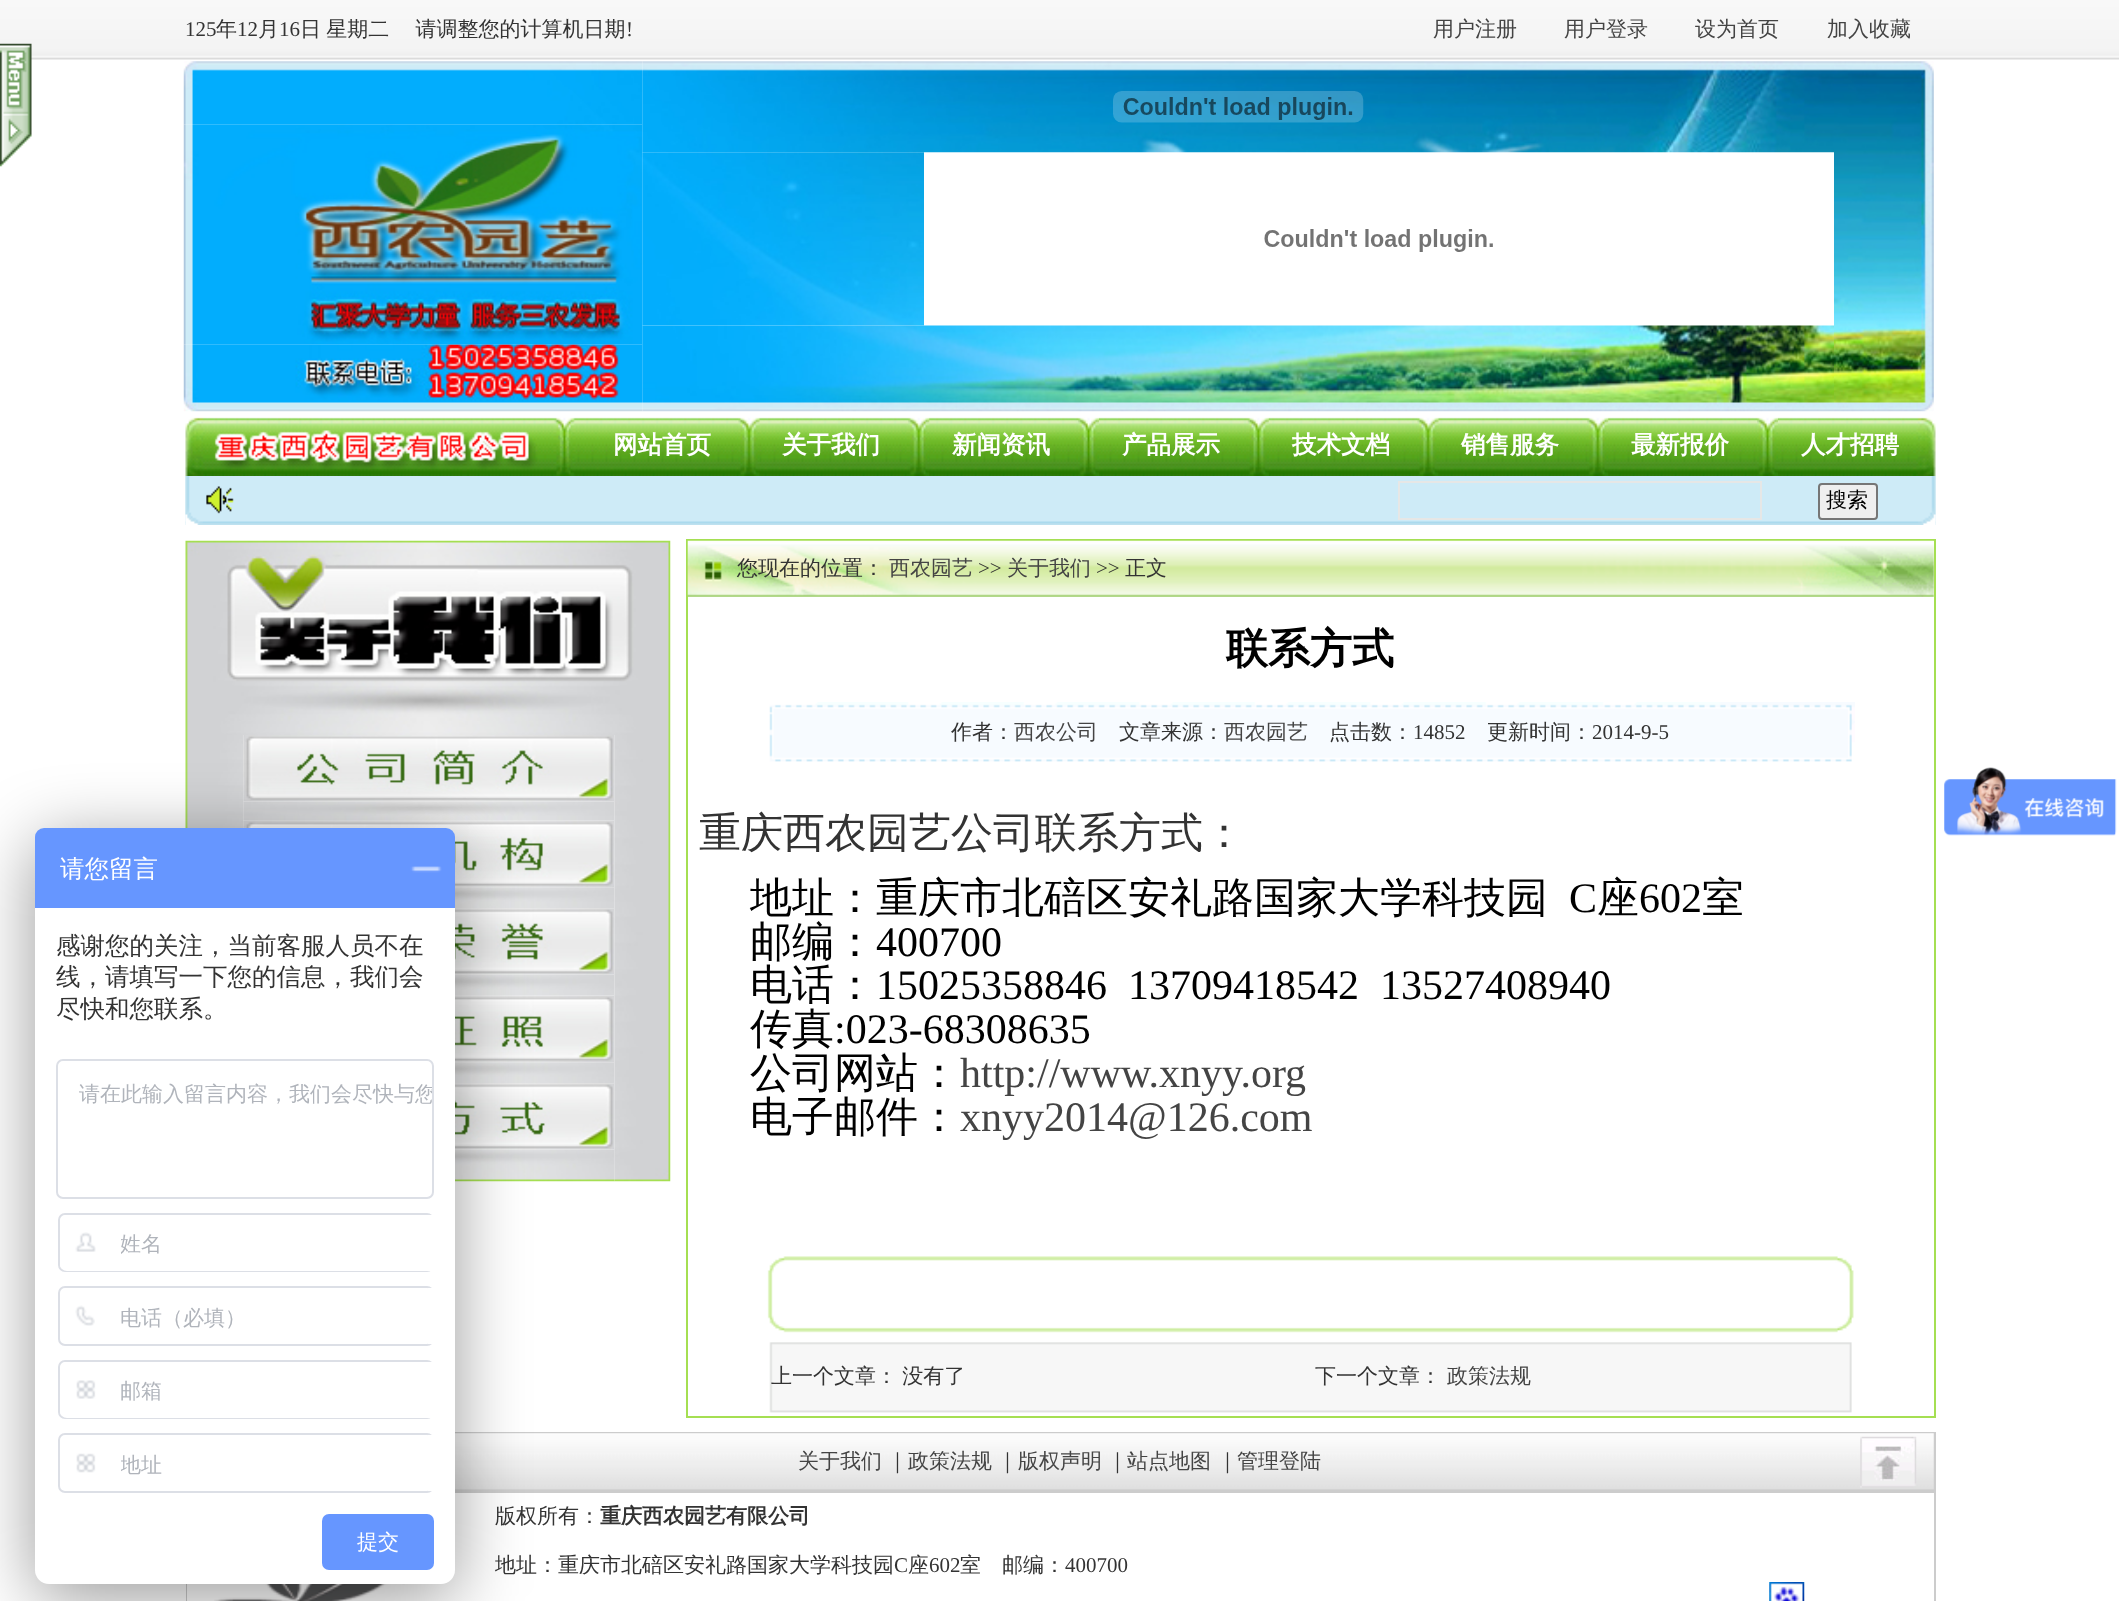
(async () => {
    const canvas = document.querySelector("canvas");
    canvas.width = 2119;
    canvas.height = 1601;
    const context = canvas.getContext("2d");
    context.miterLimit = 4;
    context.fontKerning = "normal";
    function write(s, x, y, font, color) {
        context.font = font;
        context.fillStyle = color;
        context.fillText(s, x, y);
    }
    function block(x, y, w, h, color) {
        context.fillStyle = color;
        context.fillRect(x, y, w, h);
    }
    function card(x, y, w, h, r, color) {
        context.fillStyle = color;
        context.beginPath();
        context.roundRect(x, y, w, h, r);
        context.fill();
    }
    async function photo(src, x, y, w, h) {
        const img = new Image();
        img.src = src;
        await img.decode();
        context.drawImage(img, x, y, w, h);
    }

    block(0, 0, 2119, 1601, "rgb(255, 255, 255)");
    await photo("media/1.png", 0, 0, 2119, 60);
    write("125", 185, 36, "21px Liberation Serif", "rgb(51, 51, 51)");
    write("年", 216, 36, "500 21px WenQuanYi Zen Hei", "rgb(51, 51, 51)");
    write("12", 237, 36, "21px Liberation Serif", "rgb(51, 51, 51)");
    write("月", 258, 36, "500 21px WenQuanYi Zen Hei", "rgb(51, 51, 51)");
    write("16", 279, 36, "21px Liberation Serif", "rgb(51, 51, 51)");
    context.wordSpacing = "-1px";
    write("日 星期二 　请调整您的计算机日期", 300, 36, "500 21px WenQuanYi Zen Hei", "rgb(51, 51, 51)");
    context.wordSpacing = "0px";
    write("!", 626, 36, "21px Liberation Serif", "rgb(51, 51, 51)");
    write("用户注册", 1433, 36, "500 21px WenQuanYi Zen Hei", "rgb(68, 68, 68)");
    write("用户登录", 1564, 36, "500 21px WenQuanYi Zen Hei", "rgb(68, 68, 68)");
    write("设为首页", 1695, 36, "500 21px WenQuanYi Zen Hei", "rgb(68, 68, 68)");
    write("加入收藏", 1827, 36, "500 21px WenQuanYi Zen Hei", "rgb(68, 68, 68)");
    await photo("media/2.png", 0, 43, 32, 124);
    await photo("media/4.png", 642, 61, 1192, 92);
    await photo("media/3.png", 183, 61, 460, 64);
    await photo("media/5.png", 1113, 91, 251, 32);
    await photo("media/6.png", 1834, 61, 100, 351);
    await photo("media/7.png", 183, 124, 460, 221);
    await photo("media/8.png", 642, 152, 282, 174);
    await photo("media/9.png", 1264, 229, 229, 23);
    await photo("media/11.png", 642, 325, 1192, 87);
    await photo("media/10.png", 183, 344, 460, 68);
    await photo("media/12.png", 185, 417, 1751, 59);
    write("网站首页", 613, 453, "bold 24.5px WenQuanYi Zen Hei", "rgb(255, 255, 255)");
    await photo("media/13.png", 738, 417, 22, 59);
    write("关于我们", 782, 453, "bold 24.5px WenQuanYi Zen Hei", "rgb(255, 255, 255)");
    await photo("media/14.png", 908, 417, 22, 59);
    write("新闻资讯", 952, 453, "bold 24.5px WenQuanYi Zen Hei", "rgb(255, 255, 255)");
    await photo("media/15.png", 1078, 417, 21, 59);
    write("产品展示", 1122, 453, "bold 24.5px WenQuanYi Zen Hei", "rgb(255, 255, 255)");
    await photo("media/16.png", 1247, 417, 22, 59);
    write("技术文档", 1292, 453, "bold 24.5px WenQuanYi Zen Hei", "rgb(255, 255, 255)");
    await photo("media/17.png", 1417, 417, 22, 59);
    write("销售服务", 1461, 453, "bold 24.5px WenQuanYi Zen Hei", "rgb(255, 255, 255)");
    await photo("media/18.png", 1587, 417, 22, 59);
    write("最新报价", 1631, 453, "bold 24.5px WenQuanYi Zen Hei", "rgb(255, 255, 255)");
    await photo("media/19.png", 1757, 417, 21, 59);
    write("人才招聘", 1801, 453, "bold 24.5px WenQuanYi Zen Hei", "rgb(255, 255, 255)");
    await photo("media/20.png", 185, 476, 1751, 49);
    await photo("media/21.png", 185, 476, 18, 49);
    await photo("media/22.png", 206, 486, 28, 28);
    context.strokeStyle = "rgb(230, 231, 230)";
    context.lineWidth = 2;
    context.strokeRect(1399, 482, 362, 37);
    context.fillStyle = "rgb(239, 239, 239)";
    context.beginPath();
    context.roundRect(1819, 484, 58, 35, 3);
    context.fill();
    context.strokeStyle = "rgb(118, 118, 118)";
    context.stroke();
    write("搜索", 1826, 507, "500 21px WenQuanYi Zen Hei", "rgb(0, 0, 0)");
    await photo("media/23.png", 1918, 476, 18, 49);
    await photo("media/24.png", 1944, 767, 173, 69);
    await photo("media/32.png", 185, 735, 59, 93);
    await photo("media/33.png", 243, 735, 372, 67);
    await photo("media/35.png", 243, 801, 371, 20);
    await photo("media/36.png", 243, 821, 371, 67);
    await photo("media/37.png", 455, 887, 159, 22);
    await photo("media/38.png", 455, 908, 159, 67);
    await photo("media/39.png", 455, 975, 159, 21);
    await photo("media/40.png", 455, 996, 159, 67);
    await photo("media/41.png", 455, 1062, 159, 22);
    await photo("media/42.png", 455, 1083, 159, 67);
    await photo("media/34.png", 614, 735, 57, 447);
    await photo("media/43.png", 455, 1150, 160, 32);
    block(186, 1432, 1750, 169, "rgb(204, 204, 204)");
    await photo("media/48.png", 455, 1433, 1479, 57);
    block(187, 1493, 1747, 108, "rgb(255, 255, 255)");
    await photo("media/50.png", 214, 1584, 201, 17);
    context.fillStyle = "rgba(0, 0, 0, 0.4)";
    context.filter = "blur(35px)";
    context.beginPath();
    context.roundRect(35, 842, 420, 756, 14);
    context.fill();
    context.filter = "none";
    card(35, 828, 420, 756, 14, "rgb(255, 255, 255)");
    context.fillStyle = "rgb(102, 150, 255)";
    context.beginPath();
    context.roundRect(35, 828, 420, 80, [9, 9, 0, 0]);
    context.fill();
    write("请您留言", 60, 877, "500 24.5px WenQuanYi Zen Hei", "rgb(255, 255, 255)");
    await photo("media/25.png", 410, 866, 32, 7);
    write("感谢您的关注，当前客服人员不在", 56, 954, "500 24.5px WenQuanYi Zen Hei", "rgb(51, 51, 51)");
    write("线，请填写一下您的信息，我们会", 56, 985, "500 24.5px WenQuanYi Zen Hei", "rgb(51, 51, 51)");
    write("尽快和您联系。", 56, 1017, "500 24.5px WenQuanYi Zen Hei", "rgb(51, 51, 51)");
    context.beginPath();
    context.roundRect(57, 1060, 376, 138, 6);
    context.strokeStyle = "rgb(220, 223, 230)";
    context.stroke();
    context.save();
    context.beginPath();
    context.roundRect(58, 1061, 374, 136, 5);
    context.clip();
    write("请在此输入留言内容，我们会尽快与您", 79, 1101, "500 21px WenQuanYi Zen Hei", "rgb(176, 180, 187)");
    context.restore();
    context.beginPath();
    context.roundRect(59, 1214, 374, 57, 6);
    context.stroke();
    context.fillStyle = "rgb(255, 255, 255)";
    context.beginPath();
    context.roundRect(60, 1215, 61, 56, [7, 0, 0, 7]);
    context.fill();
    await photo("media/26.png", 75, 1232, 21, 20);
    block(121, 1215, 313, 56, "rgb(255, 255, 255)");
    context.save();
    context.beginPath();
    context.rect(121, 1230, 317, 30);
    context.clip();
    write("姓名", 120, 1251, "500 21px WenQuanYi Zen Hei", "rgb(176, 180, 187)");
    context.restore();
    context.beginPath();
    context.roundRect(59, 1287, 374, 58, 6);
    context.stroke();
    await photo("media/27.png", 75, 1305, 20, 21);
    block(428, 1288, 6, 56, "rgb(255, 255, 255)");
    write("电话（必填）", 120, 1325, "500 21px WenQuanYi Zen Hei", "rgb(176, 180, 187)");
    context.beginPath();
    context.roundRect(59, 1361, 374, 57, 6);
    context.stroke();
    context.fillStyle = "rgb(255, 255, 255)";
    context.beginPath();
    context.roundRect(60, 1362, 61, 56, [7, 0, 0, 7]);
    context.fill();
    await photo("media/28.png", 76, 1380, 20, 19);
    block(121, 1362, 313, 56, "rgb(255, 255, 255)");
    write("邮箱", 120, 1398, "500 21px WenQuanYi Zen Hei", "rgb(176, 180, 187)");
    context.beginPath();
    context.roundRect(59, 1434, 374, 58, 6);
    context.stroke();
    await photo("media/29.png", 76, 1453, 20, 20);
    block(428, 1435, 6, 56, "rgb(255, 255, 255)");
    context.save();
    context.beginPath();
    context.rect(121, 1451, 317, 30);
    context.clip();
    write("地址", 120, 1472, "500 21px WenQuanYi Zen Hei", "rgb(176, 180, 187)");
    context.restore();
    card(322, 1514, 112, 56, 7, "rgb(102, 150, 255)");
    write("提交", 357, 1549, "500 21px WenQuanYi Zen Hei", "rgb(255, 255, 255)");
    await photo("media/30.png", 185, 540, 486, 181);
    await photo("media/31.png", 185, 721, 486, 14);
    context.strokeStyle = "rgb(165, 223, 82)";
    context.strokeRect(687, 540, 1248, 877);
    await photo("media/44.png", 687, 540, 1247, 57);
    write("您现在的位置：", 737, 575, "500 21px WenQuanYi Zen Hei", "rgb(51, 51, 51)");
    write("西农园艺", 889, 575, "500 21px WenQuanYi Zen Hei", "rgb(68, 68, 68)");
    write(">>", 978, 575, "21px Liberation Serif", "rgb(51, 51, 51)");
    write("关于我们", 1007, 575, "500 21px WenQuanYi Zen Hei", "rgb(68, 68, 68)");
    write(">>", 1096, 575, "21px Liberation Serif", "rgb(51, 51, 51)");
    write("正文", 1125, 575, "500 21px WenQuanYi Zen Hei", "rgb(51, 51, 51)");
    write("联系方式", 1226, 663, "bold 42px WenQuanYi Zen Hei", "rgb(0, 0, 0)");
    await photo("media/45.png", 769, 702, 1086, 60);
    write("作者：", 951, 739, "500 21px WenQuanYi Zen Hei", "rgb(51, 51, 51)");
    write("西农公司", 1014, 739, "500 21px WenQuanYi Zen Hei", "rgb(68, 68, 68)");
    write("文章来源：", 1119, 739, "500 21px WenQuanYi Zen Hei", "rgb(51, 51, 51)");
    write("西农园艺", 1224, 739, "500 21px WenQuanYi Zen Hei", "rgb(68, 68, 68)");
    write("点击数：", 1329, 739, "500 21px WenQuanYi Zen Hei", "rgb(51, 51, 51)");
    write("14852", 1413, 739, "21px Liberation Serif", "rgb(51, 51, 51)");
    write("更新时间：", 1487, 739, "500 21px WenQuanYi Zen Hei", "rgb(51, 51, 51)");
    write("2014-9-5", 1592, 739, "21px Liberation Serif", "rgb(51, 51, 51)");
    write("重庆西农园艺公司联系方式：", 699, 847, "500 42px WenQuanYi Zen Hei", "rgb(51, 51, 51)");
    write("地址：重庆市北碚区安礼路国家大学科技园", 750, 912, "500 42px WenQuanYi Zen Hei", "rgb(0, 0, 0)");
    write("C", 1569, 912, "42px Liberation Serif", "rgb(0, 0, 0)");
    write("座", 1597, 912, "500 42px WenQuanYi Zen Hei", "rgb(0, 0, 0)");
    write("602", 1639, 912, "42px Liberation Serif", "rgb(0, 0, 0)");
    write("室", 1702, 912, "500 42px WenQuanYi Zen Hei", "rgb(0, 0, 0)");
    write("邮编：", 750, 956, "500 42px WenQuanYi Zen Hei", "rgb(0, 0, 0)");
    write("400700", 876, 956, "42px Liberation Serif", "rgb(0, 0, 0)");
    write("电话：", 750, 999, "500 42px WenQuanYi Zen Hei", "rgb(0, 0, 0)");
    write("15025358846", 876, 999, "42px Liberation Serif", "rgb(0, 0, 0)");
    write("13709418542", 1128, 999, "42px Liberation Serif", "rgb(0, 0, 0)");
    write("13527408940", 1380, 999, "42px Liberation Serif", "rgb(0, 0, 0)");
    write("传真", 750, 1043, "500 42px WenQuanYi Zen Hei", "rgb(0, 0, 0)");
    write(":023-68308635", 834, 1043, "42px Liberation Serif", "rgb(0, 0, 0)");
    write("公司网站：", 750, 1087, "500 42px WenQuanYi Zen Hei", "rgb(0, 0, 0)");
    write("http://www.xnyy.org", 960, 1087, "42px Liberation Serif", "rgb(68, 68, 68)");
    write("电子邮件：", 750, 1131, "500 42px WenQuanYi Zen Hei", "rgb(0, 0, 0)");
    write("xnyy2014@126.com", 960, 1131, "42px Liberation Serif", "rgb(68, 68, 68)");
    await photo("media/46.png", 767, 1256, 1087, 77);
    await photo("media/47.png", 769, 1342, 1083, 71);
    context.wordSpacing = "-1px";
    write("上一个文章： 没有了", 771, 1383, "500 21px WenQuanYi Zen Hei", "rgb(51, 51, 51)");
    context.wordSpacing = "0px";
    write("下一个文章：", 1315, 1383, "500 21px WenQuanYi Zen Hei", "rgb(51, 51, 51)");
    write("政策法规", 1447, 1383, "500 21px WenQuanYi Zen Hei", "rgb(68, 68, 68)");
    write("关于我们", 798, 1468, "500 21px WenQuanYi Zen Hei", "rgb(68, 68, 68)");
    write("｜", 887, 1468, "500 21px WenQuanYi Zen Hei", "rgb(51, 51, 51)");
    write("政策法规", 908, 1468, "500 21px WenQuanYi Zen Hei", "rgb(68, 68, 68)");
    write("｜", 997, 1468, "500 21px WenQuanYi Zen Hei", "rgb(51, 51, 51)");
    write("版权声明", 1018, 1468, "500 21px WenQuanYi Zen Hei", "rgb(68, 68, 68)");
    write("｜", 1107, 1468, "500 21px WenQuanYi Zen Hei", "rgb(51, 51, 51)");
    write("站点地图", 1127, 1468, "500 21px WenQuanYi Zen Hei", "rgb(68, 68, 68)");
    write("｜", 1217, 1468, "500 21px WenQuanYi Zen Hei", "rgb(51, 51, 51)");
    write("管理登陆", 1237, 1468, "500 21px WenQuanYi Zen Hei", "rgb(68, 68, 68)");
    await photo("media/49.png", 1860, 1436, 57, 52);
    write("版权所有：", 495, 1523, "500 21px WenQuanYi Zen Hei", "rgb(51, 51, 51)");
    write("重庆西农园艺有限公司", 600, 1523, "bold 21px WenQuanYi Zen Hei", "rgb(51, 51, 51)");
    await photo("media/51.png", 1769, 1582, 36, 19);
    write("地址：重庆市北碚区安礼路国家大学科技园", 495, 1572, "500 21px WenQuanYi Zen Hei", "rgb(51, 51, 51)");
    write("C", 894, 1572, "21px Liberation Serif", "rgb(51, 51, 51)");
    write("座", 908, 1572, "500 21px WenQuanYi Zen Hei", "rgb(51, 51, 51)");
    write("602", 929, 1572, "21px Liberation Serif", "rgb(51, 51, 51)");
    write("室　邮编：", 960, 1572, "500 21px WenQuanYi Zen Hei", "rgb(51, 51, 51)");
    write("400700", 1065, 1572, "21px Liberation Serif", "rgb(51, 51, 51)");
})();
